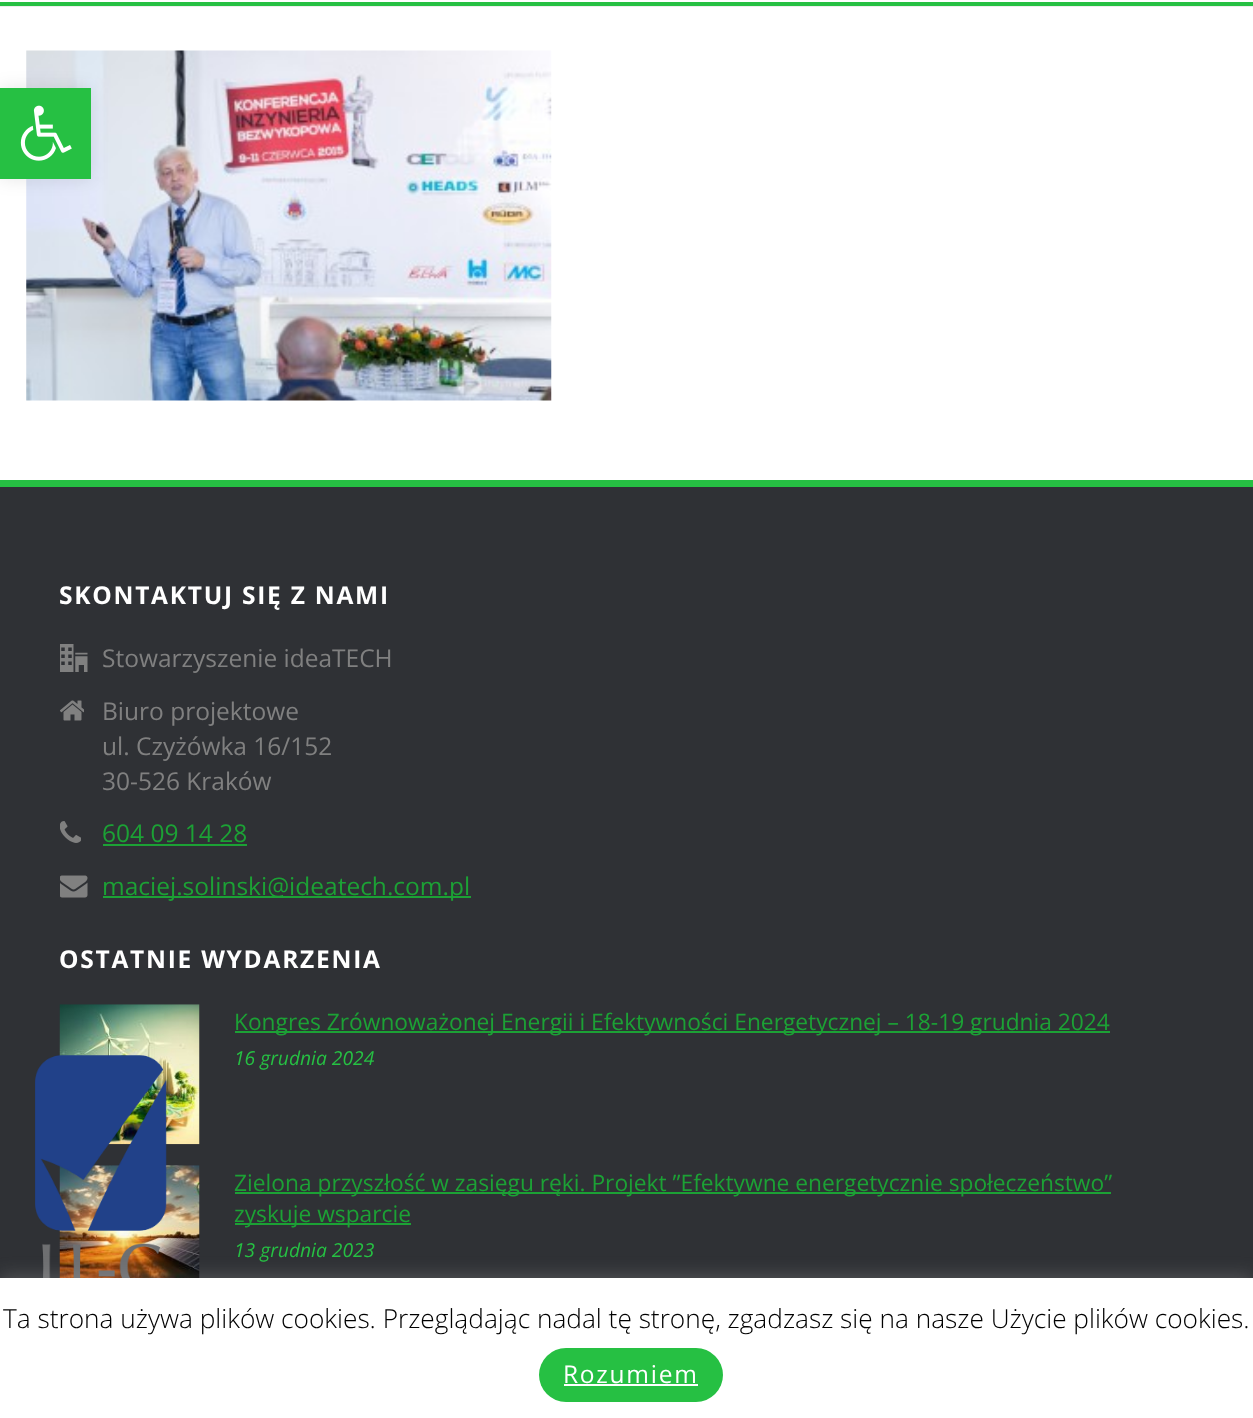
(async () => {
    const canvas = document.querySelector("canvas");
    canvas.width = 1253;
    canvas.height = 1418;
    const context = canvas.getContext("2d");
    context.miterLimit = 4;
    context.fontKerning = "normal";
    function write(s, x, y, font, color) {
        context.font = font;
        context.fillStyle = color;
        context.fillText(s, x, y);
    }
    function block(x, y, w, h, color) {
        context.fillStyle = color;
        context.fillRect(x, y, w, h);
    }
    function card(x, y, w, h, r, color) {
        context.fillStyle = color;
        context.beginPath();
        context.roundRect(x, y, w, h, r);
        context.fill();
    }
    async function photo(src, x, y, w, h) {
        const img = new Image();
        img.src = src;
        await img.decode();
        context.drawImage(img, x, y, w, h);
    }

    block(0, 0, 1253, 1418, "rgb(255, 255, 255)");
    await photo("media/2.png", 26, 50, 526, 351);
    context.fillStyle = "rgba(0, 0, 0, 0.1)";
    context.filter = "blur(9px)";
    context.beginPath();
    context.rect(0, 88, 91, 91);
    context.fill();
    context.filter = "none";
    block(0, 88, 91, 91, "rgb(38, 192, 67)");
    await photo("media/1.png", 20, 105, 52, 56);
    block(0, 6, 1253, 1, "rgb(237, 237, 237)");
    block(0, 2, 1253, 4, "rgb(38, 192, 67)");
    block(0, 487, 1253, 791, "rgb(47, 49, 53)");
    block(0, 480, 1253, 7, "rgb(38, 192, 67)");
    context.letterSpacing = "1.75px";
    write("SKONTAKTUJ SIĘ Z NAMI", 59, 604, "bold 24.5px Open Sans", "rgb(255, 255, 255)");
    await photo("media/3.png", 60, 644, 28, 28);
    context.letterSpacing = "0px";
    write("Stowarzyszenie ideaTECH", 102, 667, "24.5px Open Sans", "rgb(128, 128, 128)");
    await photo("media/4.png", 60, 700, 24, 21);
    write("Biuro projektowe", 102, 720, "24.5px Open Sans", "rgb(128, 128, 128)");
    write("ul. Czyżówka 16/152", 102, 755, "24.5px Open Sans", "rgb(128, 128, 128)");
    write("30-526 Kraków", 102, 790, "24.5px Open Sans", "rgb(128, 128, 128)");
    await photo("media/5.png", 60, 821, 21, 22);
    write("604 09 14 28", 102, 842, "24.5px Open Sans", "rgb(28, 161, 53)");
    block(103, 844, 144, 2, "rgb(28, 161, 53)");
    await photo("media/6.png", 60, 875, 28, 23);
    block(103, 896, 368, 2, "rgb(28, 161, 53)");
    write("maciej.solinski@ideatech.com.pl", 102, 895, "24.5px Open Sans", "rgb(28, 161, 53)");
    context.letterSpacing = "1.75px";
    write("OSTATNIE WYDARZENIA", 59, 968, "bold 24.5px Open Sans", "rgb(255, 255, 255)");
    await photo("media/7.png", 59, 1004, 141, 141);
    block(235, 1031, 875, 2, "rgb(28, 161, 53)");
    context.letterSpacing = "0px";
    write("Kongres Zrównoważonej Energii i Efektywności Energetycznej – 18-19 grudnia 2024", 234, 1030, "22.75px Open Sans", "rgb(28, 161, 53)");
    write("16 grudnia 2024", 234, 1065, "italic 19.25px Open Sans", "rgb(38, 192, 67)");
    await photo("media/8.png", 59, 1165, 141, 113);
    block(235, 1192, 876, 2, "rgb(28, 161, 53)");
    write("Zielona przyszłość w zasięgu ręki. Projekt ”Efektywne energetycznie społeczeństwo”", 234, 1191, "22.75px Open Sans", "rgb(28, 161, 53)");
    block(235, 1223, 176, 2, "rgb(28, 161, 53)");
    write("zyskuje wsparcie", 234, 1222, "22.75px Open Sans", "rgb(28, 161, 53)");
    write("13 grudnia 2023", 234, 1257, "italic 19.25px Open Sans", "rgb(38, 192, 67)");
    await photo("media/9.png", 35, 1055, 132, 223);
    context.fillStyle = "rgba(172, 171, 171, 0.3)";
    context.filter = "blur(9px)";
    context.beginPath();
    context.rect(0, 1276, 1253, 142);
    context.fill();
    context.filter = "none";
    block(0, 1278, 1253, 140, "rgb(255, 255, 255)");
    write("Ta strona używa plików cookies. Przeglądając nadal tę stronę, zgadzasz się na nasze Użycie plików cookies.", 3, 1328, "300 26.25px Open Sans", "rgb(0, 0, 0)");
    card(539, 1348, 184, 54, 27, "rgb(38, 192, 67)");
    context.letterSpacing = "1.75px";
    write("Rozumiem", 563, 1383, "24.5px Open Sans", "rgb(255, 255, 255)");
    block(564, 1384, 134, 2, "rgb(255, 255, 255)");
})();
